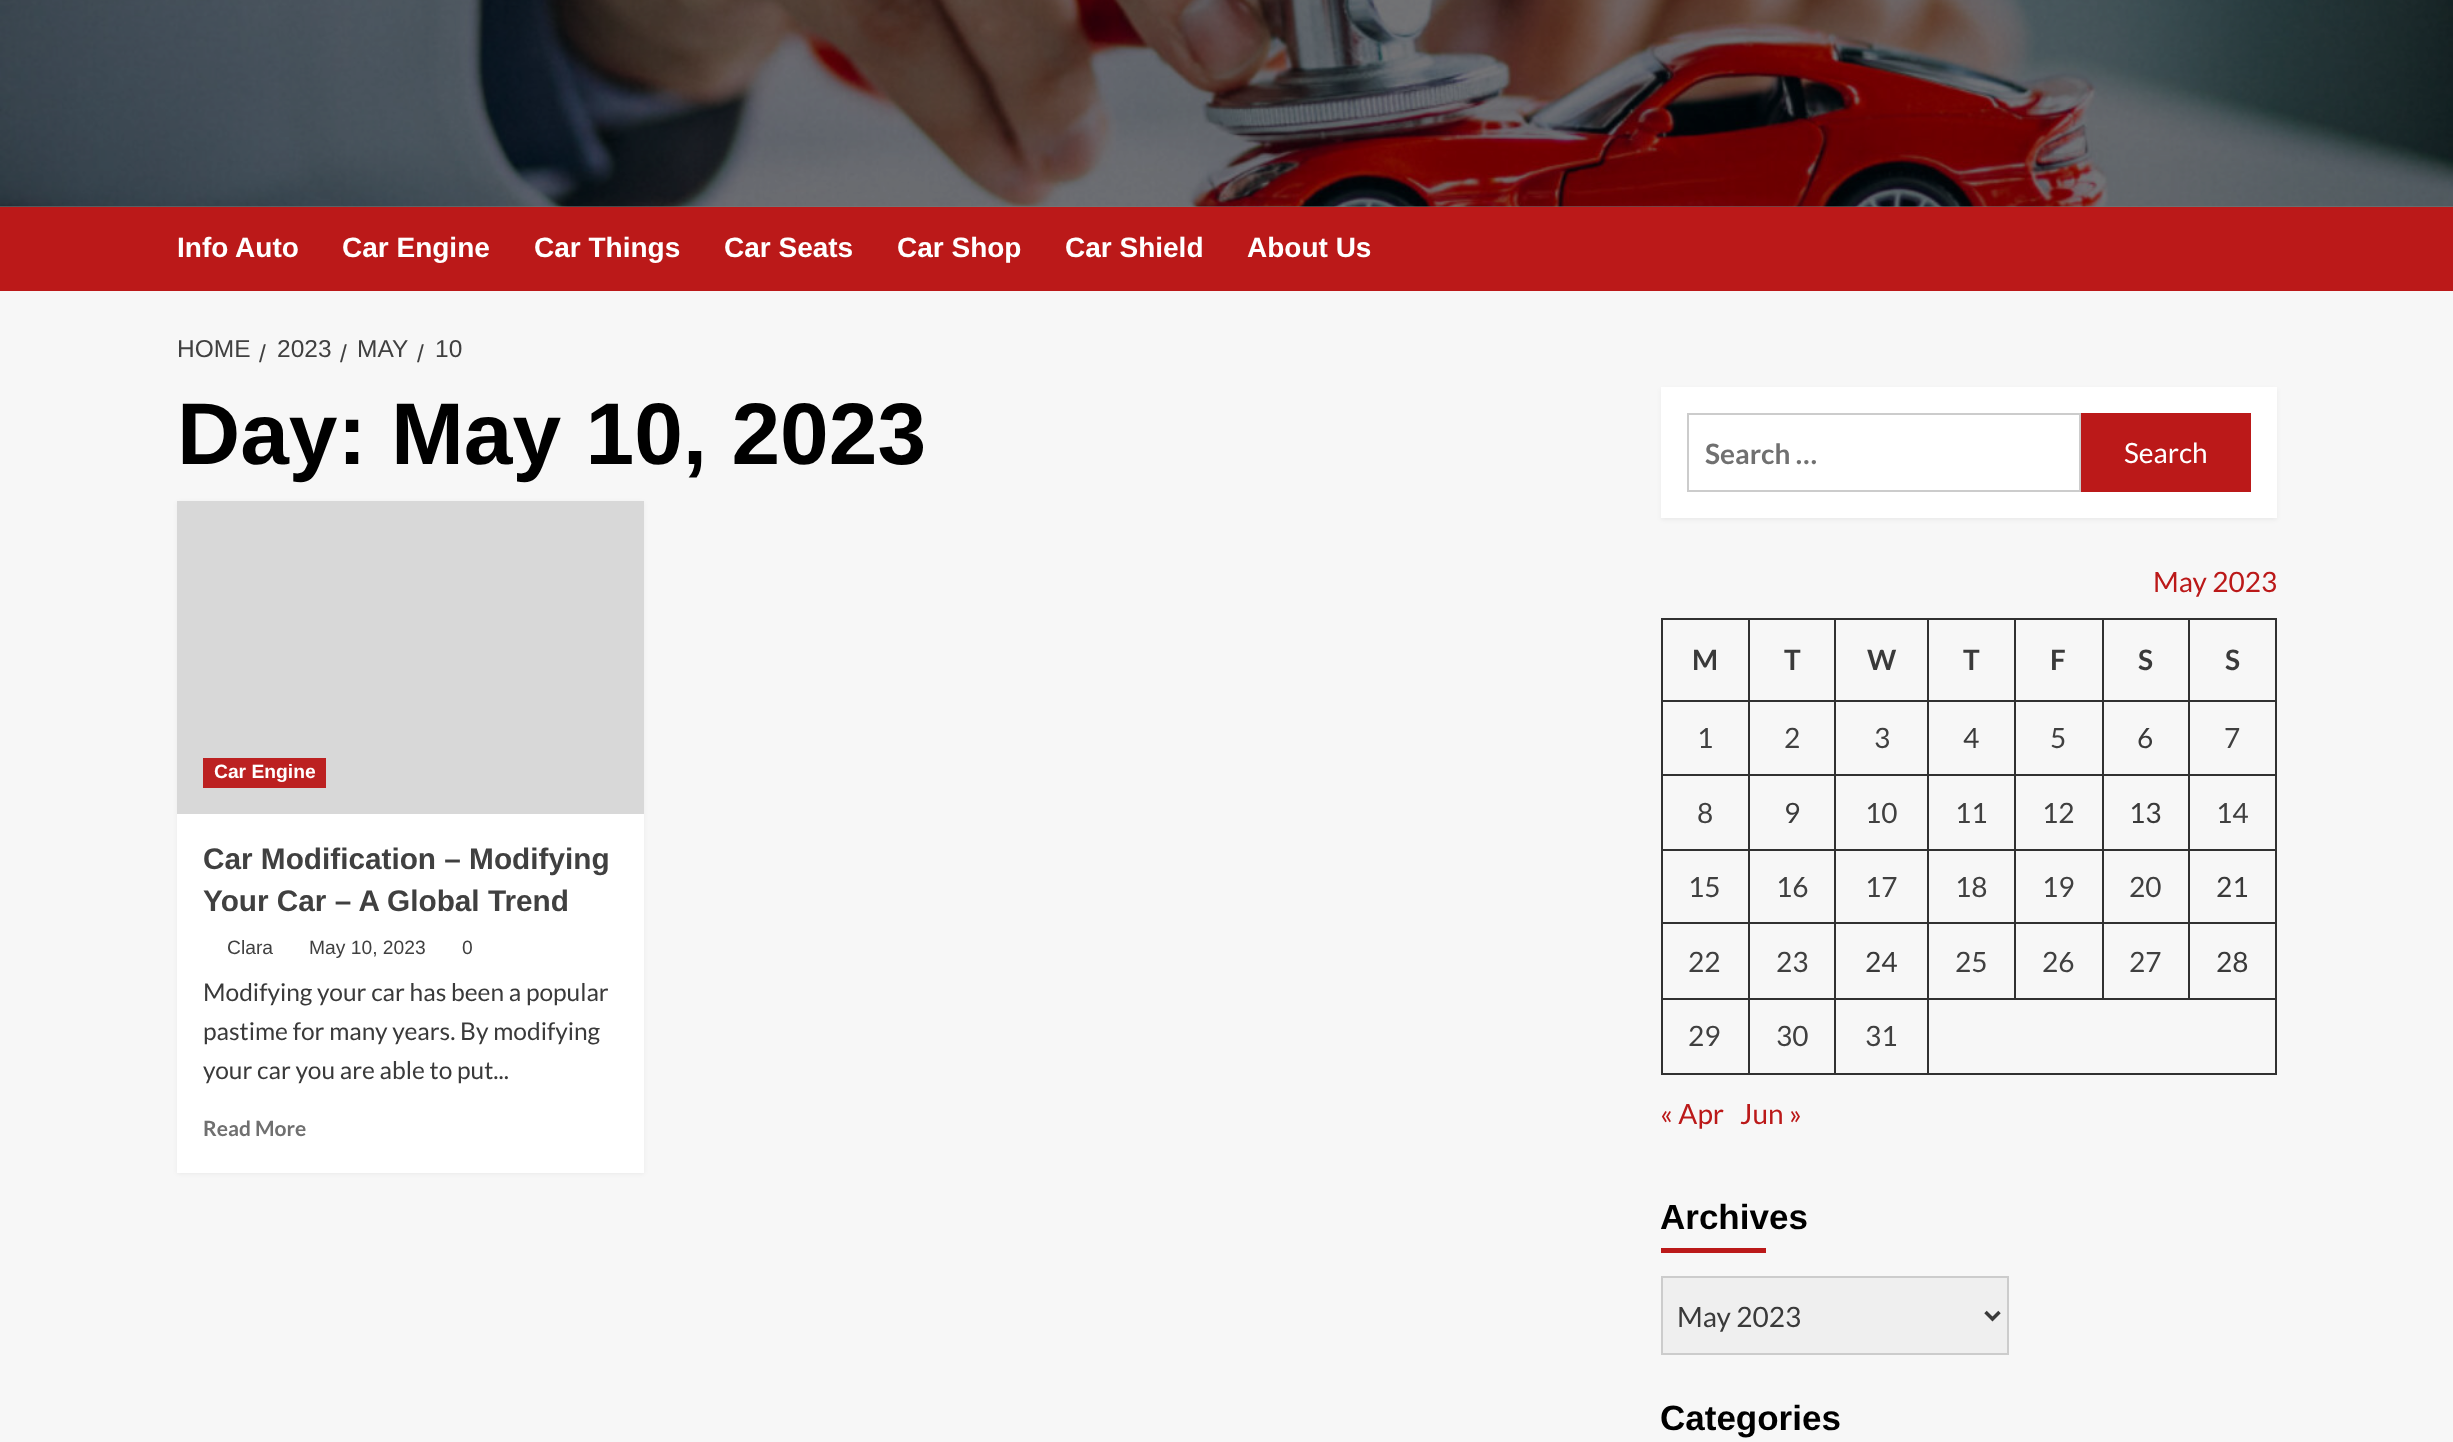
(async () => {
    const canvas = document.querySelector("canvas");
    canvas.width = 2453;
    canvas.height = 1442;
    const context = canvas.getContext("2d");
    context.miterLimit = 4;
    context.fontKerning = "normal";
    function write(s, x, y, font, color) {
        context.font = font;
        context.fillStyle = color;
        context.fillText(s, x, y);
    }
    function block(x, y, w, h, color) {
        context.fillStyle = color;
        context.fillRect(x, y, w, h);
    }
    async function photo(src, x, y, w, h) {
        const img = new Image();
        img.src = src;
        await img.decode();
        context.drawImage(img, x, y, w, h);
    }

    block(0, 0, 2453, 1442, "rgb(247, 247, 247)");
    block(0, 206, 2453, 1, "rgb(124, 124, 124)");
    await photo("media/1.png", 0, 0, 2453, 207);
    block(0, 207, 2453, 84, "rgb(187, 25, 25)");
    write("Info Auto", 177, 257, "bold 28px Liberation Sans", "rgb(255, 255, 255)");
    write("Car Engine", 342, 257, "bold 28px Liberation Sans", "rgb(255, 255, 255)");
    write("Car Things", 534, 257, "bold 28px Liberation Sans", "rgb(255, 255, 255)");
    write("Car Seats", 724, 257, "bold 28px Liberation Sans", "rgb(255, 255, 255)");
    write("Car Shop", 897, 257, "bold 28px Liberation Sans", "rgb(255, 255, 255)");
    write("Car Shield", 1065, 257, "bold 28px Liberation Sans", "rgb(255, 255, 255)");
    write("About Us", 1247, 257, "bold 28px Liberation Sans", "rgb(255, 255, 255)");
    write("HOME", 177, 357, "24.5px Liberation Sans", "rgb(64, 64, 64)");
    write("/", 259, 362, "24.5px Liberation Sans", "rgb(64, 64, 64)");
    write("2023", 277, 357, "24.5px Liberation Sans", "rgb(64, 64, 64)");
    write("/", 340, 362, "24.5px Liberation Sans", "rgb(64, 64, 64)");
    write("MAY", 357, 357, "24.5px Liberation Sans", "rgb(64, 64, 64)");
    write("/", 417, 362, "24.5px Liberation Sans", "rgb(64, 64, 64)");
    write("10", 435, 357, "24.5px Liberation Sans", "rgb(64, 64, 64)");
    write("Day: May 10, 2023", 177, 464, "bold 87.5px Liberation Sans", "rgb(0, 0, 0)");
    context.fillStyle = "rgba(0, 0, 0, 0.05)";
    context.filter = "blur(2px)";
    context.beginPath();
    context.rect(177, 502, 467, 672);
    context.fill();
    context.filter = "none";
    block(177, 814, 467, 359, "rgb(255, 255, 255)");
    block(177, 501, 467, 313, "rgb(216, 216, 216)");
    block(203, 758, 123, 30, "rgb(188, 33, 33)");
    write("Car Engine", 214, 778, "bold 19.25px Liberation Sans", "rgb(255, 255, 255)");
    write("Car Modification – Modifying", 203, 869, "bold 29.75px Liberation Sans", "rgb(64, 64, 64)");
    write("Your Car – A Global Trend", 203, 911, "bold 29.75px Liberation Sans", "rgb(64, 64, 64)");
    write("Clara", 227, 954, "19.25px Liberation Sans", "rgb(64, 64, 64)");
    write("May 10, 2023", 309, 954, "19.25px Liberation Sans", "rgb(64, 64, 64)");
    write("0", 462, 954, "19.25px Liberation Sans", "rgb(64, 64, 64)");
    write("Modifying your car has been a popular", 203, 1001, "24.5px Lato", "rgb(58, 58, 58)");
    write("pastime for many years. By modifying", 203, 1040, "24.5px Lato", "rgb(58, 58, 58)");
    write("your car you are able to put...", 203, 1079, "24.5px Lato", "rgb(58, 58, 58)");
    write("Read More", 203, 1136, "bold 21px Lato", "rgb(112, 112, 112)");
    context.fillStyle = "rgba(0, 0, 0, 0.05)";
    context.filter = "blur(2px)";
    context.beginPath();
    context.rect(1661, 389, 616, 131);
    context.fill();
    context.filter = "none";
    block(1661, 387, 616, 131, "rgb(255, 255, 255)");
    context.strokeStyle = "rgb(204, 204, 204)";
    context.lineWidth = 2;
    context.strokeRect(1688, 414, 392, 77);
    write("Search …", 1705, 464, "bold 28px Lato", "rgb(112, 112, 112)");
    block(2081, 413, 170, 79, "rgb(187, 25, 25)");
    write("Search", 2124, 463, "28px Lato", "rgb(255, 255, 255)");
    write("May 2023", 2153, 592, "28px Lato", "rgb(187, 25, 25)");
    block(2188, 618, 89, 2, "rgb(49, 49, 49)");
    block(2188, 700, 89, 2, "rgb(49, 49, 49)");
    block(2188, 774, 89, 2, "rgb(49, 49, 49)");
    block(2188, 849, 89, 2, "rgb(49, 49, 49)");
    block(2188, 922, 89, 2, "rgb(49, 49, 49)");
    block(1927, 998, 350, 2, "rgb(49, 49, 49)");
    block(2188, 922, 2, 77, "rgb(49, 49, 49)");
    block(2102, 922, 87, 2, "rgb(49, 49, 49)");
    block(2188, 849, 2, 75, "rgb(49, 49, 49)");
    block(2102, 849, 87, 2, "rgb(49, 49, 49)");
    block(2188, 774, 2, 77, "rgb(49, 49, 49)");
    block(2102, 774, 87, 2, "rgb(49, 49, 49)");
    block(2188, 700, 2, 75, "rgb(49, 49, 49)");
    block(2102, 700, 87, 2, "rgb(49, 49, 49)");
    block(2188, 618, 2, 84, "rgb(49, 49, 49)");
    block(2102, 618, 87, 2, "rgb(49, 49, 49)");
    block(2102, 922, 2, 77, "rgb(49, 49, 49)");
    block(2014, 922, 90, 2, "rgb(49, 49, 49)");
    block(2102, 849, 2, 75, "rgb(49, 49, 49)");
    block(2014, 849, 90, 2, "rgb(49, 49, 49)");
    block(2102, 774, 2, 77, "rgb(49, 49, 49)");
    block(2014, 774, 90, 2, "rgb(49, 49, 49)");
    block(2102, 700, 2, 75, "rgb(49, 49, 49)");
    block(2014, 700, 90, 2, "rgb(49, 49, 49)");
    block(2102, 618, 2, 84, "rgb(49, 49, 49)");
    block(2014, 618, 90, 2, "rgb(49, 49, 49)");
    block(2014, 922, 2, 77, "rgb(49, 49, 49)");
    block(1927, 922, 89, 2, "rgb(49, 49, 49)");
    block(2014, 849, 2, 75, "rgb(49, 49, 49)");
    block(1927, 849, 89, 2, "rgb(49, 49, 49)");
    block(2014, 774, 2, 77, "rgb(49, 49, 49)");
    block(1927, 774, 89, 2, "rgb(49, 49, 49)");
    block(2014, 700, 2, 75, "rgb(49, 49, 49)");
    block(1927, 700, 89, 2, "rgb(49, 49, 49)");
    block(2014, 618, 2, 84, "rgb(49, 49, 49)");
    block(1927, 618, 89, 2, "rgb(49, 49, 49)");
    block(2275, 998, 2, 77, "rgb(49, 49, 49)");
    block(1927, 1073, 350, 2, "rgb(49, 49, 49)");
    block(1927, 998, 2, 77, "rgb(49, 49, 49)");
    block(1834, 998, 95, 2, "rgb(49, 49, 49)");
    block(1927, 922, 2, 77, "rgb(49, 49, 49)");
    block(1834, 922, 95, 2, "rgb(49, 49, 49)");
    block(1927, 849, 2, 75, "rgb(49, 49, 49)");
    block(1834, 849, 95, 2, "rgb(49, 49, 49)");
    block(1927, 774, 2, 77, "rgb(49, 49, 49)");
    block(1834, 774, 95, 2, "rgb(49, 49, 49)");
    block(1927, 700, 2, 75, "rgb(49, 49, 49)");
    block(1834, 700, 95, 2, "rgb(49, 49, 49)");
    block(1927, 618, 2, 84, "rgb(49, 49, 49)");
    block(1834, 618, 95, 2, "rgb(49, 49, 49)");
    block(1834, 1073, 95, 2, "rgb(49, 49, 49)");
    block(1834, 998, 2, 77, "rgb(49, 49, 49)");
    block(1748, 998, 88, 2, "rgb(49, 49, 49)");
    block(1834, 922, 2, 77, "rgb(49, 49, 49)");
    block(1748, 922, 88, 2, "rgb(49, 49, 49)");
    block(1834, 849, 2, 75, "rgb(49, 49, 49)");
    block(1748, 849, 88, 2, "rgb(49, 49, 49)");
    block(1834, 774, 2, 77, "rgb(49, 49, 49)");
    block(1748, 774, 88, 2, "rgb(49, 49, 49)");
    block(1834, 700, 2, 75, "rgb(49, 49, 49)");
    block(1748, 700, 88, 2, "rgb(49, 49, 49)");
    block(1834, 618, 2, 84, "rgb(49, 49, 49)");
    block(1748, 618, 88, 2, "rgb(49, 49, 49)");
    block(1748, 1073, 88, 2, "rgb(49, 49, 49)");
    block(1748, 998, 2, 77, "rgb(49, 49, 49)");
    block(1661, 998, 89, 2, "rgb(49, 49, 49)");
    block(1748, 922, 2, 77, "rgb(49, 49, 49)");
    block(1661, 922, 89, 2, "rgb(49, 49, 49)");
    block(1748, 849, 2, 75, "rgb(49, 49, 49)");
    block(1661, 849, 89, 2, "rgb(49, 49, 49)");
    block(1748, 774, 2, 77, "rgb(49, 49, 49)");
    block(1661, 774, 89, 2, "rgb(49, 49, 49)");
    block(1748, 700, 2, 75, "rgb(49, 49, 49)");
    block(1661, 700, 89, 2, "rgb(49, 49, 49)");
    block(1748, 618, 2, 84, "rgb(49, 49, 49)");
    block(1661, 618, 89, 2, "rgb(49, 49, 49)");
    block(1661, 1073, 89, 2, "rgb(49, 49, 49)");
    block(1661, 998, 2, 77, "rgb(49, 49, 49)");
    block(1661, 922, 2, 77, "rgb(49, 49, 49)");
    block(1661, 849, 2, 75, "rgb(49, 49, 49)");
    block(1661, 774, 2, 77, "rgb(49, 49, 49)");
    block(1661, 700, 2, 75, "rgb(49, 49, 49)");
    block(1661, 618, 2, 84, "rgb(49, 49, 49)");
    write("M", 1692, 670, "bold 28px Lato", "rgb(58, 58, 58)");
    write("T", 1784, 670, "bold 28px Lato", "rgb(58, 58, 58)");
    write("W", 1867, 670, "bold 28px Lato", "rgb(58, 58, 58)");
    write("T", 1963, 670, "bold 28px Lato", "rgb(58, 58, 58)");
    write("F", 2050, 670, "bold 28px Lato", "rgb(58, 58, 58)");
    write("S", 2138, 670, "bold 28px Lato", "rgb(58, 58, 58)");
    block(2275, 922, 2, 77, "rgb(49, 49, 49)");
    block(2275, 849, 2, 75, "rgb(49, 49, 49)");
    block(2275, 774, 2, 77, "rgb(49, 49, 49)");
    block(2275, 700, 2, 75, "rgb(49, 49, 49)");
    block(2275, 618, 2, 84, "rgb(49, 49, 49)");
    write("S", 2225, 670, "bold 28px Lato", "rgb(58, 58, 58)");
    write("1", 1697, 748, "28px Lato", "rgb(64, 64, 64)");
    write("2", 1784, 748, "28px Lato", "rgb(64, 64, 64)");
    write("3", 1874, 748, "28px Lato", "rgb(64, 64, 64)");
    write("4", 1963, 748, "28px Lato", "rgb(58, 58, 58)");
    write("5", 2050, 748, "28px Lato", "rgb(64, 64, 64)");
    write("6", 2137, 748, "28px Lato", "rgb(58, 58, 58)");
    write("7", 2224, 748, "28px Lato", "rgb(64, 64, 64)");
    write("8", 1697, 823, "28px Lato", "rgb(64, 64, 64)");
    write("9", 1784, 823, "28px Lato", "rgb(58, 58, 58)");
    write("10", 1865, 823, "28px Lato", "rgb(64, 64, 64)");
    write("11", 1955, 823, "28px Lato", "rgb(64, 64, 64)");
    write("12", 2042, 823, "28px Lato", "rgb(64, 64, 64)");
    write("13", 2129, 823, "28px Lato", "rgb(58, 58, 58)");
    write("14", 2216, 823, "28px Lato", "rgb(64, 64, 64)");
    write("15", 1688, 897, "28px Lato", "rgb(64, 64, 64)");
    write("16", 1776, 897, "28px Lato", "rgb(64, 64, 64)");
    write("17", 1865, 897, "28px Lato", "rgb(64, 64, 64)");
    write("18", 1955, 897, "28px Lato", "rgb(64, 64, 64)");
    write("19", 2042, 897, "28px Lato", "rgb(64, 64, 64)");
    write("20", 2129, 897, "28px Lato", "rgb(64, 64, 64)");
    write("21", 2216, 897, "28px Lato", "rgb(58, 58, 58)");
    write("22", 1688, 972, "28px Lato", "rgb(64, 64, 64)");
    write("23", 1776, 972, "28px Lato", "rgb(64, 64, 64)");
    write("24", 1865, 972, "28px Lato", "rgb(58, 58, 58)");
    write("25", 1955, 972, "28px Lato", "rgb(64, 64, 64)");
    write("26", 2042, 972, "28px Lato", "rgb(64, 64, 64)");
    write("27", 2129, 972, "28px Lato", "rgb(64, 64, 64)");
    write("28", 2216, 972, "28px Lato", "rgb(58, 58, 58)");
    write("29", 1688, 1046, "28px Lato", "rgb(64, 64, 64)");
    write("30", 1776, 1046, "28px Lato", "rgb(64, 64, 64)");
    write("31", 1865, 1046, "28px Lato", "rgb(64, 64, 64)");
    write("« Apr", 1660, 1124, "28px Lato", "rgb(187, 25, 25)");
    write("Jun »", 1740, 1124, "28px Lato", "rgb(187, 25, 25)");
    write("Archives", 1660, 1229, "bold 35px Liberation Sans", "rgb(0, 0, 0)");
    block(1661, 1248, 105, 5, "rgb(187, 25, 25)");
    context.fillStyle = "rgb(239, 239, 239)";
    context.beginPath();
    context.rect(1662, 1277, 346, 77);
    context.fill();
    context.stroke();
    context.beginPath();
    context.moveTo(1985.5, 1312);
    context.lineTo(1992.5, 1319);
    context.lineTo(1999.5, 1312);
    context.strokeStyle = "rgb(58, 58, 58)";
    context.lineWidth = 3.5;
    context.stroke();
    write("May 2023", 1677, 1327, "28px Lato", "rgb(58, 58, 58)");
    write("Categories", 1660, 1430, "bold 35px Liberation Sans", "rgb(0, 0, 0)");
})();
